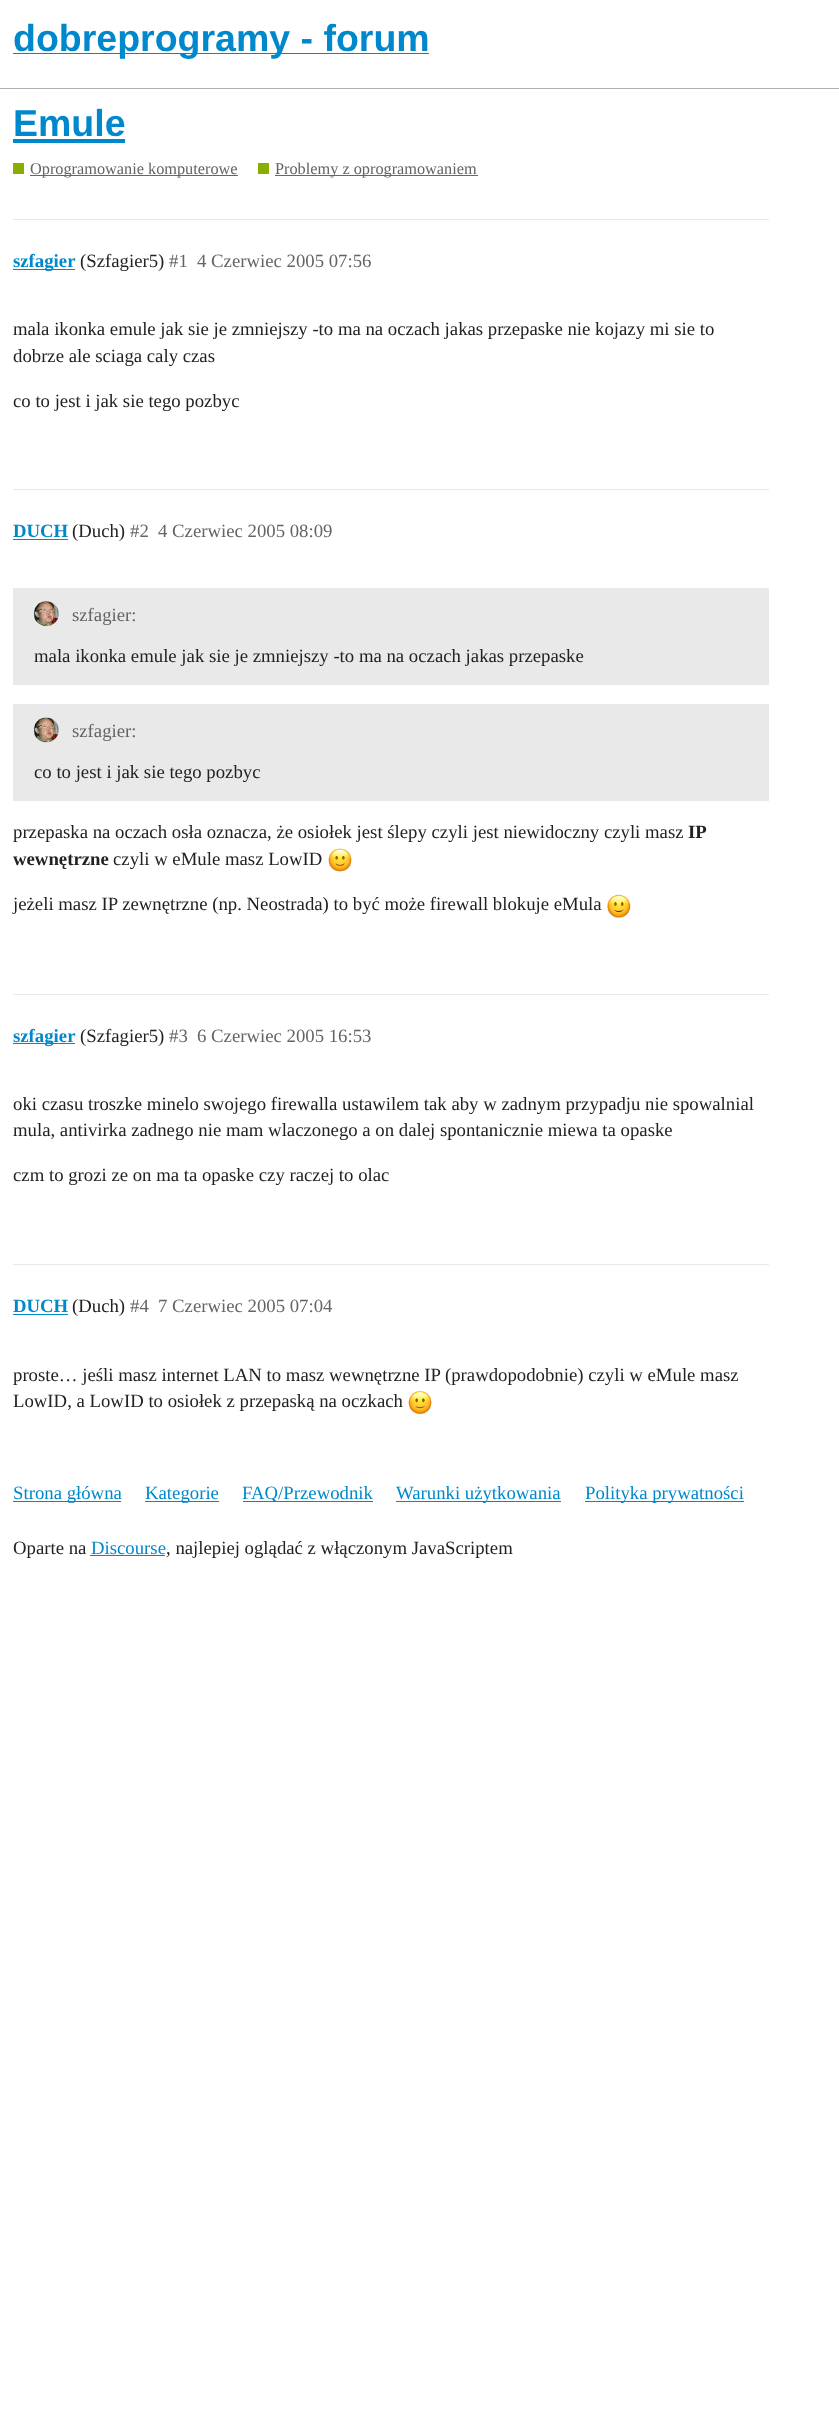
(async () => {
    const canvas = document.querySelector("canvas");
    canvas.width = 839;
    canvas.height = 2420;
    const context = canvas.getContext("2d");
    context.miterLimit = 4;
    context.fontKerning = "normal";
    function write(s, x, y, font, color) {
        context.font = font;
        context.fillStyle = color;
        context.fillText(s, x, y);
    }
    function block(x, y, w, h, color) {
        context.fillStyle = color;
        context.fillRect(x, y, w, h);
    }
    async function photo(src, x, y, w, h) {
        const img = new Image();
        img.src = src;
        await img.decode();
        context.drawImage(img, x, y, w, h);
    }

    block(0, 0, 839, 2420, "rgb(255, 255, 255)");
    block(0, 88, 839, 1, "rgb(175, 175, 175)");
    block(13, 53, 416, 1, "rgb(0, 136, 204)");
    write("dobreprogramy - forum", 13, 51, "bold 37.5px Liberation Sans", "rgb(0, 136, 204)");
    write("Emule", 13, 136, "bold 37.5px Liberation Sans", "rgb(0, 136, 204)");
    block(13, 139, 112, 4, "rgb(0, 136, 204)");
    block(13, 163, 11, 11, "rgb(136, 174, 4)");
    block(30, 175, 208, 1, "rgb(0, 136, 204)");
    write("Oprogramowanie komputerowe", 30, 174, "16.3px Liberation Serif", "rgb(100, 100, 100)");
    block(258, 163, 11, 11, "rgb(136, 174, 4)");
    block(275, 175, 203, 1, "rgb(0, 136, 204)");
    write("Problemy z oprogramowaniem", 275, 174, "16.3px Liberation Serif", "rgb(100, 100, 100)");
    block(13, 219, 756, 1, "rgb(233, 233, 233)");
    block(13, 269, 62, 1, "rgb(0, 136, 204)");
    write("szfagier", 13, 267, "bold 18.75px Liberation Serif", "rgb(0, 136, 204)");
    write("(Szfagier5)", 80, 267, "18.75px Liberation Serif", "rgb(34, 34, 34)");
    write("#1", 169, 267, "18.75px Liberation Serif", "rgb(100, 100, 100)");
    write("4 Czerwiec 2005 07:56", 197, 267, "18.75px Liberation Serif", "rgb(100, 100, 100)");
    write("mala ikonka emule jak sie je zmniejszy -to ma na oczach jakas przepaske nie kojazy mi sie to", 13, 335, "18.75px Liberation Serif", "rgb(34, 34, 34)");
    write("dobrze ale sciaga caly czas", 13, 362, "18.75px Liberation Serif", "rgb(34, 34, 34)");
    write("co to jest i jak sie tego pozbyc", 13, 407, "18.75px Liberation Serif", "rgb(34, 34, 34)");
    block(13, 489, 756, 1, "rgb(233, 233, 233)");
    write("DUCH", 13, 537, "bold 18.75px Liberation Serif", "rgb(0, 136, 204)");
    block(13, 539, 55, 1, "rgb(0, 136, 204)");
    write("(Duch)", 72, 537, "18.75px Liberation Serif", "rgb(34, 34, 34)");
    write("#2", 130, 537, "18.75px Liberation Serif", "rgb(100, 100, 100)");
    write("4 Czerwiec 2005 08:09", 158, 537, "18.75px Liberation Serif", "rgb(100, 100, 100)");
    block(13, 588, 756, 97, "rgb(233, 233, 233)");
    await photo("media/1.png", 33, 601, 26, 26);
    write("szfagier:", 72, 621, "18.75px Liberation Serif", "rgb(100, 100, 100)");
    write("mala ikonka emule jak sie je zmniejszy -to ma na oczach jakas przepaske", 34, 662, "18.75px Liberation Serif", "rgb(34, 34, 34)");
    block(13, 704, 756, 97, "rgb(233, 233, 233)");
    await photo("media/2.png", 33, 717, 26, 26);
    write("szfagier:", 72, 737, "18.75px Liberation Serif", "rgb(100, 100, 100)");
    write("co to jest i jak sie tego pozbyc", 34, 778, "18.75px Liberation Serif", "rgb(34, 34, 34)");
    write("przepaska na oczach osła oznacza, że osiołek jest ślepy czyli jest niewidoczny czyli masz", 13, 838, "18.75px Liberation Serif", "rgb(34, 34, 34)");
    write("IP", 688, 838, "bold 18.75px Liberation Serif", "rgb(34, 34, 34)");
    write("wewnętrzne", 13, 865, "bold 18.75px Liberation Serif", "rgb(34, 34, 34)");
    write("czyli w eMule masz LowID", 113, 865, "18.75px Liberation Serif", "rgb(34, 34, 34)");
    await photo("media/3.png", 328, 848, 24, 24);
    write("jeżeli masz IP zewnętrzne (np. Neostrada) to być może firewall blokuje eMula", 13, 910, "18.75px Liberation Serif", "rgb(34, 34, 34)");
    await photo("media/4.png", 607, 894, 24, 24);
    block(13, 994, 756, 1, "rgb(233, 233, 233)");
    block(13, 1043, 62, 1, "rgb(0, 136, 204)");
    write("szfagier", 13, 1042, "bold 18.75px Liberation Serif", "rgb(0, 136, 204)");
    write("(Szfagier5)", 80, 1042, "18.75px Liberation Serif", "rgb(34, 34, 34)");
    write("#3", 169, 1042, "18.75px Liberation Serif", "rgb(100, 100, 100)");
    write("6 Czerwiec 2005 16:53", 197, 1042, "18.75px Liberation Serif", "rgb(100, 100, 100)");
    write("oki czasu troszke minelo swojego firewalla ustawilem tak aby w zadnym przypadju nie spowalnial", 13, 1110, "18.75px Liberation Serif", "rgb(34, 34, 34)");
    write("mula, antivirka zadnego nie mam wlaczonego a on dalej spontanicznie miewa ta opaske", 13, 1136, "18.75px Liberation Serif", "rgb(34, 34, 34)");
    write("czm to grozi ze on ma ta opaske czy raczej to olac", 13, 1181, "18.75px Liberation Serif", "rgb(34, 34, 34)");
    block(13, 1264, 756, 1, "rgb(233, 233, 233)");
    write("DUCH", 13, 1312, "bold 18.75px Liberation Serif", "rgb(0, 136, 204)");
    block(13, 1314, 55, 1, "rgb(0, 136, 204)");
    write("(Duch)", 72, 1312, "18.75px Liberation Serif", "rgb(34, 34, 34)");
    write("#4", 130, 1312, "18.75px Liberation Serif", "rgb(100, 100, 100)");
    write("7 Czerwiec 2005 07:04", 158, 1312, "18.75px Liberation Serif", "rgb(100, 100, 100)");
    write("proste… jeśli masz internet LAN to masz wewnętrzne IP (prawdopodobnie) czyli w eMule masz", 13, 1381, "18.75px Liberation Serif", "rgb(34, 34, 34)");
    write("LowID, a LowID to osiołek z przepaską na oczkach", 13, 1407, "18.75px Liberation Serif", "rgb(34, 34, 34)");
    await photo("media/5.png", 408, 1390, 24, 25);
    block(13, 1501, 108, 1, "rgb(0, 136, 204)");
    write("Strona główna", 13, 1499, "18.75px Liberation Serif", "rgb(0, 136, 204)");
    block(145, 1501, 74, 1, "rgb(0, 136, 204)");
    write("Kategorie", 145, 1499, "18.75px Liberation Serif", "rgb(0, 136, 204)");
    block(243, 1501, 130, 1, "rgb(0, 136, 204)");
    write("FAQ/Przewodnik", 242, 1499, "18.75px Liberation Serif", "rgb(0, 136, 204)");
    block(396, 1501, 165, 1, "rgb(0, 136, 204)");
    write("Warunki użytkowania", 396, 1499, "18.75px Liberation Serif", "rgb(0, 136, 204)");
    block(585, 1501, 159, 1, "rgb(0, 136, 204)");
    write("Polityka prywatności", 585, 1499, "18.75px Liberation Serif", "rgb(0, 136, 204)");
    write("Oparte na", 13, 1554, "18.75px Liberation Serif", "rgb(34, 34, 34)");
    write("Discourse", 91, 1554, "18.75px Liberation Serif", "rgb(0, 136, 204)");
    block(90, 1555, 75, 1, "rgb(0, 136, 204)");
    write(", najlepiej oglądać z włączonym JavaScriptem", 166, 1554, "18.75px Liberation Serif", "rgb(34, 34, 34)");
})();
